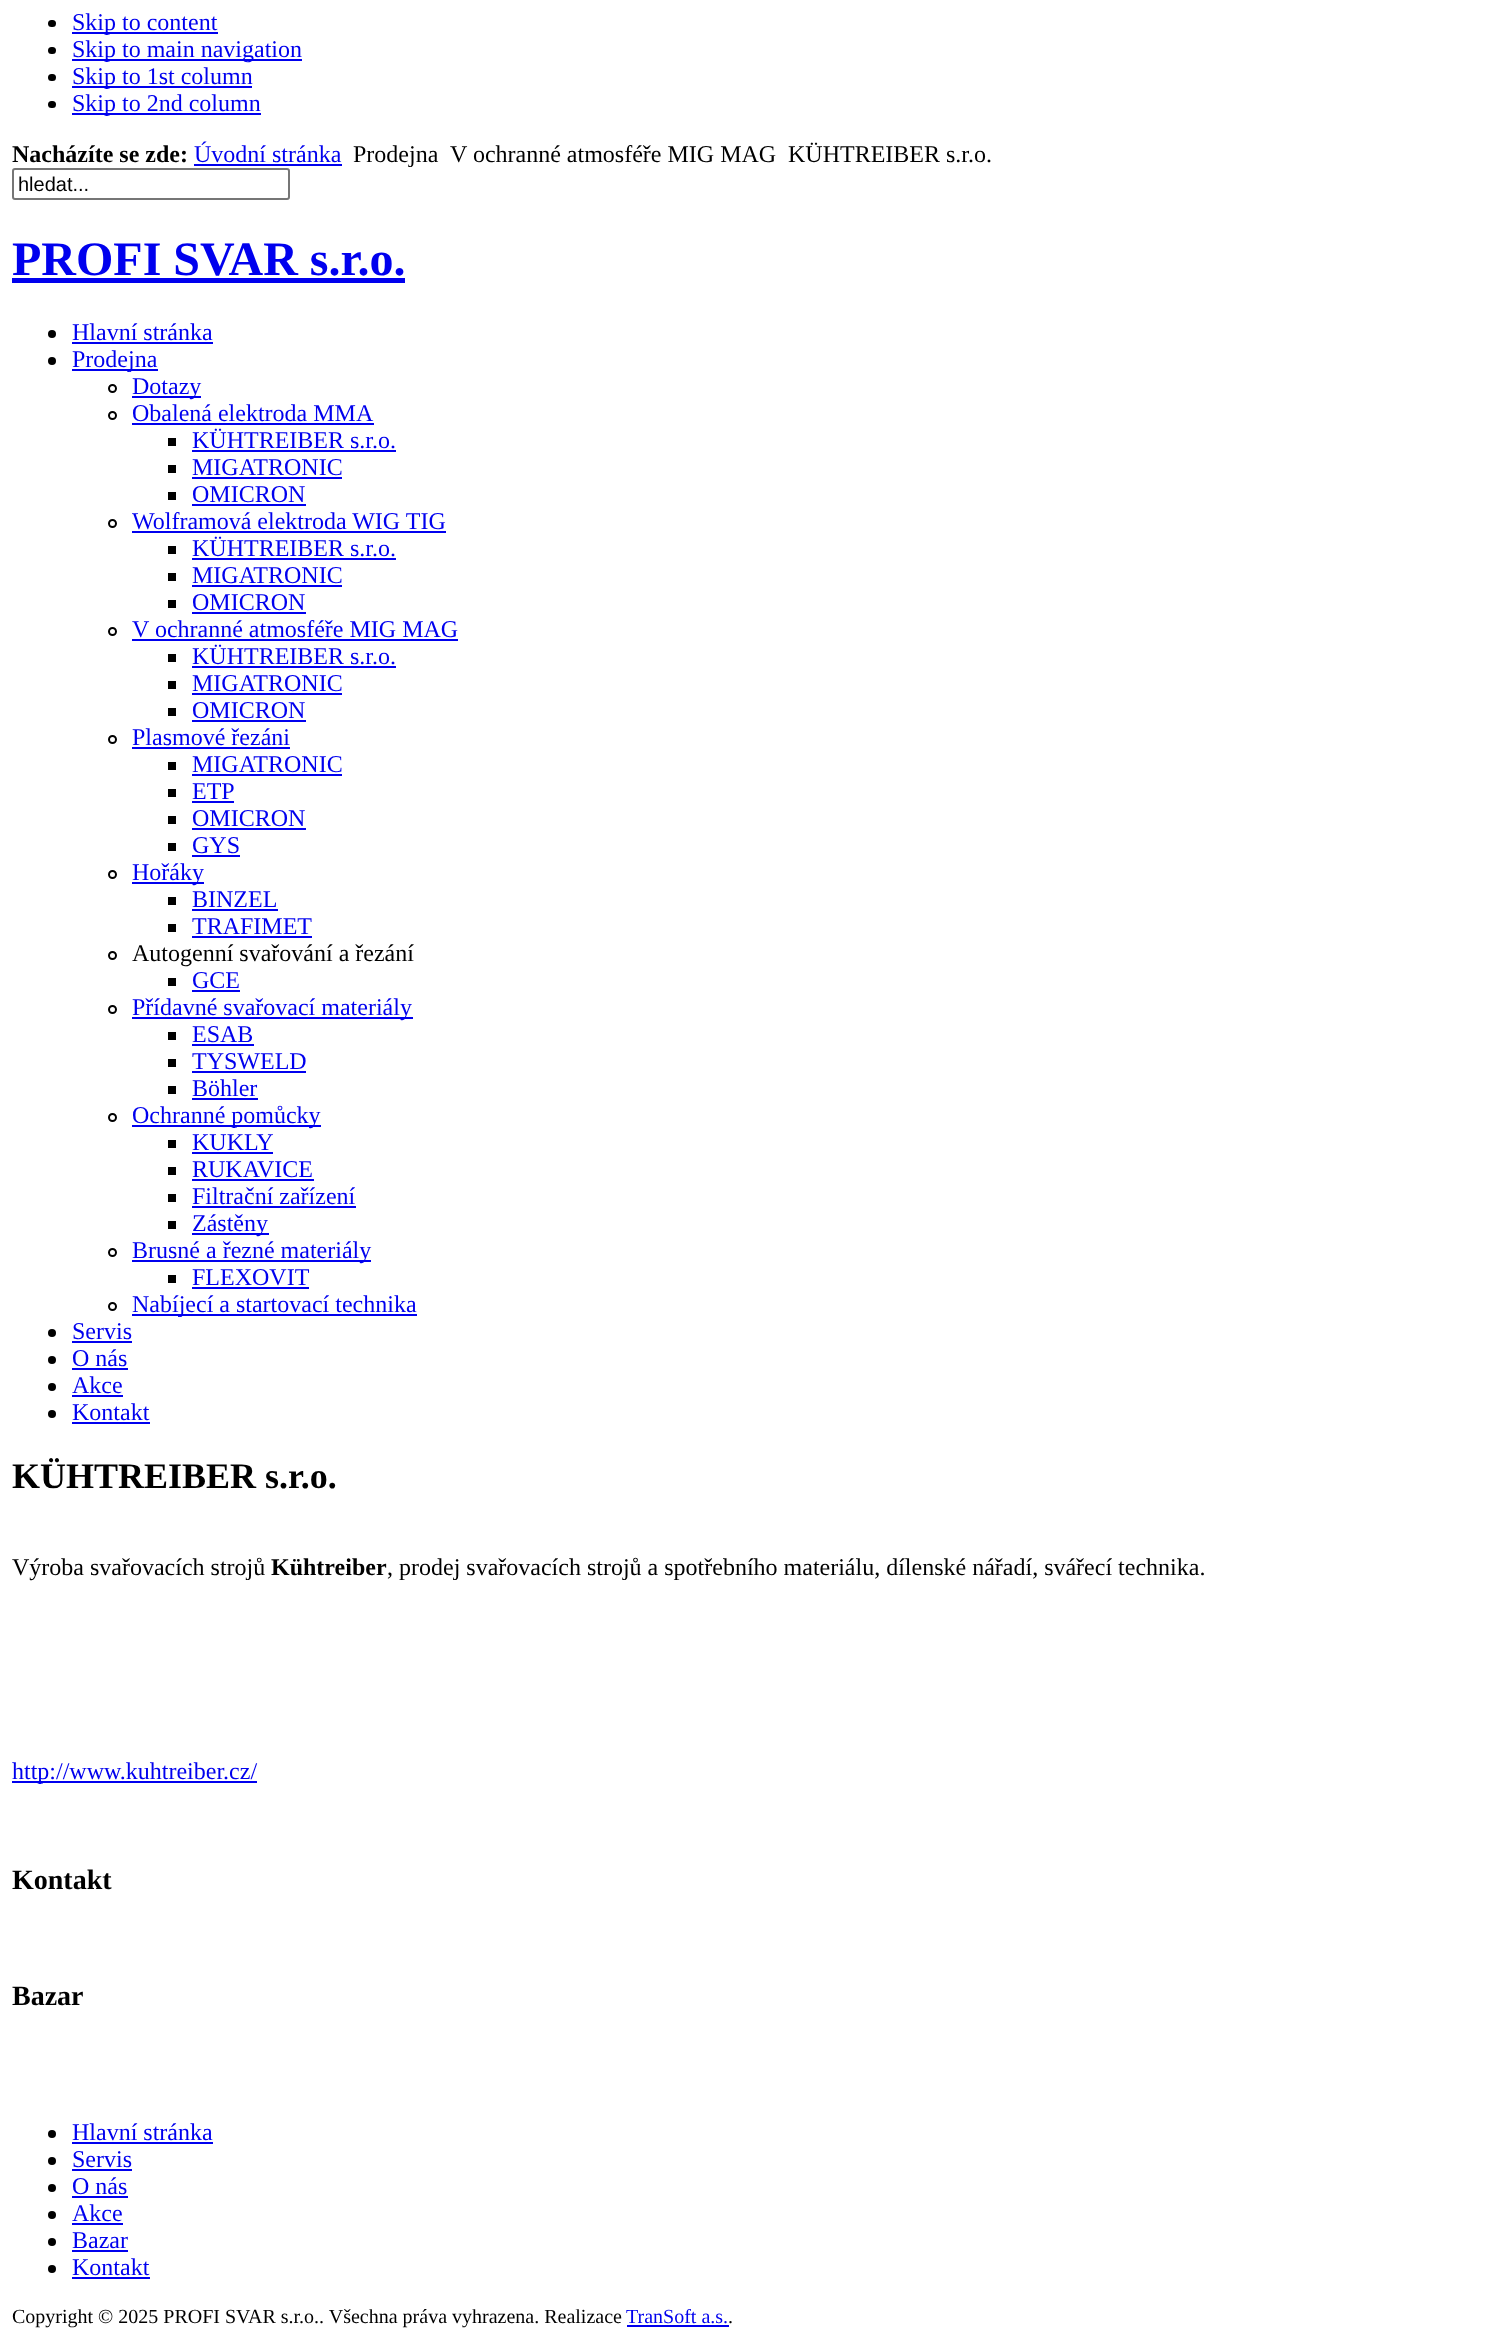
(async () => {
    const canvas = document.querySelector("canvas");
    canvas.width = 1493;
    canvas.height = 2338;
    const context = canvas.getContext("2d");
    context.miterLimit = 4;
    context.fontKerning = "normal";
    function write(s, x, y, font, color) {
        context.font = font;
        context.fillStyle = color;
        context.fillText(s, x, y);
    }
    function block(x, y, w, h, color) {
        context.fillStyle = color;
        context.fillRect(x, y, w, h);
    }
    function card(x, y, w, h, r, color) {
        context.fillStyle = color;
        context.beginPath();
        context.roundRect(x, y, w, h, r);
        context.fill();
    }

    block(0, 0, 1493, 2338, "rgb(255, 255, 255)");
    card(48, 20, 8, 7, 3.5, "rgb(0, 0, 0)");
    block(72, 32, 146, 2, "rgb(0, 0, 238)");
    write("Skip to content", 72, 30, "24px Liberation Serif", "rgb(0, 0, 238)");
    card(48, 47, 8, 7, 3.5, "rgb(0, 0, 0)");
    block(72, 59, 230, 2, "rgb(0, 0, 238)");
    write("Skip to main navigation", 72, 57, "24px Liberation Serif", "rgb(0, 0, 238)");
    card(48, 74, 8, 7, 3.5, "rgb(0, 0, 0)");
    block(72, 86, 180, 2, "rgb(0, 0, 238)");
    write("Skip to 1st column", 72, 84, "24px Liberation Serif", "rgb(0, 0, 238)");
    card(48, 101, 8, 7, 3.5, "rgb(0, 0, 0)");
    block(72, 113, 189, 2, "rgb(0, 0, 238)");
    write("Skip to 2nd column", 72, 111, "24px Liberation Serif", "rgb(0, 0, 238)");
    write("Nacházíte se zde:", 12, 162, "bold 24px Liberation Serif", "rgb(0, 0, 0)");
    write("Úvodní stránka", 194, 162, "24px Liberation Serif", "rgb(0, 0, 238)");
    block(194, 164, 148, 2, "rgb(0, 0, 238)");
    write("Prodejna", 353, 162, "24px Liberation Serif", "rgb(0, 0, 0)");
    write("V ochranné atmosféře MIG MAG", 450, 162, "24px Liberation Serif", "rgb(0, 0, 0)");
    write("KÜHTREIBER s.r.o.", 788, 162, "24px Liberation Serif", "rgb(0, 0, 0)");
    context.beginPath();
    context.roundRect(13, 169, 276, 30, 2);
    context.strokeStyle = "rgb(118, 118, 118)";
    context.lineWidth = 2;
    context.stroke();
    write("hledat...", 18, 191, "20px Liberation Sans", "rgb(0, 0, 0)");
    write("PROFI SVAR s.r.o.", 12, 275, "bold 48px Liberation Serif", "rgb(0, 0, 238)");
    block(12, 278, 393, 5, "rgb(0, 0, 238)");
    context.fillStyle = "rgb(0, 0, 0)";
    context.beginPath();
    context.arc(52, 334, 4, 0, Math.PI * 2);
    context.fill();
    write("Hlavní stránka", 72, 340, "24px Liberation Serif", "rgb(0, 0, 238)");
    block(72, 342, 141, 2, "rgb(0, 0, 238)");
    context.fillStyle = "rgb(0, 0, 0)";
    context.beginPath();
    context.arc(52, 361, 4, 0, Math.PI * 2);
    context.fill();
    block(72, 369, 86, 2, "rgb(0, 0, 238)");
    write("Prodejna", 72, 367, "24px Liberation Serif", "rgb(0, 0, 238)");
    context.beginPath();
    context.arc(112.5, 388.5, 3.5, 0, Math.PI * 2);
    context.strokeStyle = "rgb(0, 0, 0)";
    context.stroke();
    block(132, 396, 69, 2, "rgb(0, 0, 238)");
    write("Dotazy", 132, 394, "24px Liberation Serif", "rgb(0, 0, 238)");
    context.beginPath();
    context.arc(112.5, 415.5, 3.5, 0, Math.PI * 2);
    context.stroke();
    write("Obalená elektroda MMA", 132, 421, "24px Liberation Serif", "rgb(0, 0, 238)");
    block(132, 423, 242, 2, "rgb(0, 0, 238)");
    block(168, 438, 8, 8, "rgb(0, 0, 0)");
    write("KÜHTREIBER s.r.o.", 192, 448, "24px Liberation Serif", "rgb(0, 0, 238)");
    block(192, 450, 204, 2, "rgb(0, 0, 238)");
    block(168, 465, 8, 8, "rgb(0, 0, 0)");
    write("MIGATRONIC", 192, 475, "24px Liberation Serif", "rgb(0, 0, 238)");
    block(192, 477, 150, 2, "rgb(0, 0, 238)");
    block(168, 492, 8, 8, "rgb(0, 0, 0)");
    write("OMICRON", 192, 502, "24px Liberation Serif", "rgb(0, 0, 238)");
    block(192, 504, 114, 2, "rgb(0, 0, 238)");
    context.beginPath();
    context.arc(112.5, 523.5, 3.5, 0, Math.PI * 2);
    context.stroke();
    write("Wolframová elektroda WIG TIG", 132, 529, "24px Liberation Serif", "rgb(0, 0, 238)");
    block(132, 531, 314, 2, "rgb(0, 0, 238)");
    block(168, 546, 8, 8, "rgb(0, 0, 0)");
    write("KÜHTREIBER s.r.o.", 192, 556, "24px Liberation Serif", "rgb(0, 0, 238)");
    block(192, 558, 204, 2, "rgb(0, 0, 238)");
    block(168, 573, 8, 8, "rgb(0, 0, 0)");
    write("MIGATRONIC", 192, 583, "24px Liberation Serif", "rgb(0, 0, 238)");
    block(192, 585, 150, 2, "rgb(0, 0, 238)");
    block(168, 600, 8, 8, "rgb(0, 0, 0)");
    write("OMICRON", 192, 610, "24px Liberation Serif", "rgb(0, 0, 238)");
    block(192, 612, 114, 2, "rgb(0, 0, 238)");
    context.beginPath();
    context.arc(112.5, 631.5, 3.5, 0, Math.PI * 2);
    context.stroke();
    write("V ochranné atmosféře MIG MAG", 132, 637, "24px Liberation Serif", "rgb(0, 0, 238)");
    block(132, 639, 326, 2, "rgb(0, 0, 238)");
    block(168, 654, 8, 8, "rgb(0, 0, 0)");
    write("KÜHTREIBER s.r.o.", 192, 664, "24px Liberation Serif", "rgb(0, 0, 238)");
    block(192, 666, 204, 2, "rgb(0, 0, 238)");
    block(168, 681, 8, 8, "rgb(0, 0, 0)");
    write("MIGATRONIC", 192, 691, "24px Liberation Serif", "rgb(0, 0, 238)");
    block(192, 693, 150, 2, "rgb(0, 0, 238)");
    block(168, 708, 8, 8, "rgb(0, 0, 0)");
    write("OMICRON", 192, 718, "24px Liberation Serif", "rgb(0, 0, 238)");
    block(192, 720, 114, 2, "rgb(0, 0, 238)");
    context.beginPath();
    context.arc(112.5, 739.5, 3.5, 0, Math.PI * 2);
    context.stroke();
    write("Plasmové řezáni", 132, 745, "24px Liberation Serif", "rgb(0, 0, 238)");
    block(132, 747, 158, 2, "rgb(0, 0, 238)");
    block(168, 762, 8, 8, "rgb(0, 0, 0)");
    write("MIGATRONIC", 192, 772, "24px Liberation Serif", "rgb(0, 0, 238)");
    block(192, 774, 150, 2, "rgb(0, 0, 238)");
    block(168, 789, 8, 8, "rgb(0, 0, 0)");
    write("ETP", 192, 799, "24px Liberation Serif", "rgb(0, 0, 238)");
    block(192, 801, 42, 2, "rgb(0, 0, 238)");
    block(168, 816, 8, 8, "rgb(0, 0, 0)");
    write("OMICRON", 192, 826, "24px Liberation Serif", "rgb(0, 0, 238)");
    block(192, 828, 114, 2, "rgb(0, 0, 238)");
    block(168, 843, 8, 8, "rgb(0, 0, 0)");
    write("GYS", 192, 853, "24px Liberation Serif", "rgb(0, 0, 238)");
    block(192, 855, 48, 2, "rgb(0, 0, 238)");
    context.beginPath();
    context.arc(112.5, 874.5, 3.5, 0, Math.PI * 2);
    context.stroke();
    block(132, 882, 72, 2, "rgb(0, 0, 238)");
    write("Hořáky", 132, 880, "24px Liberation Serif", "rgb(0, 0, 238)");
    block(168, 897, 8, 8, "rgb(0, 0, 0)");
    write("BINZEL", 192, 907, "24px Liberation Serif", "rgb(0, 0, 238)");
    block(192, 909, 86, 2, "rgb(0, 0, 238)");
    block(168, 924, 8, 8, "rgb(0, 0, 0)");
    write("TRAFIMET", 192, 934, "24px Liberation Serif", "rgb(0, 0, 238)");
    block(192, 936, 120, 2, "rgb(0, 0, 238)");
    context.beginPath();
    context.arc(112.5, 955.5, 3.5, 0, Math.PI * 2);
    context.stroke();
    write("Autogenní svařování a řezání", 132, 961, "24px Liberation Serif", "rgb(0, 0, 0)");
    block(168, 978, 8, 8, "rgb(0, 0, 0)");
    write("GCE", 192, 988, "24px Liberation Serif", "rgb(0, 0, 238)");
    block(192, 990, 48, 2, "rgb(0, 0, 238)");
    context.beginPath();
    context.arc(112.5, 1009.5, 3.5, 0, Math.PI * 2);
    context.stroke();
    block(132, 1017, 281, 2, "rgb(0, 0, 238)");
    write("Přídavné svařovací materiály", 132, 1015, "24px Liberation Serif", "rgb(0, 0, 238)");
    block(168, 1032, 8, 8, "rgb(0, 0, 0)");
    write("ESAB", 192, 1042, "24px Liberation Serif", "rgb(0, 0, 238)");
    block(192, 1044, 62, 2, "rgb(0, 0, 238)");
    block(168, 1059, 8, 8, "rgb(0, 0, 0)");
    write("TYSWELD", 192, 1069, "24px Liberation Serif", "rgb(0, 0, 238)");
    block(192, 1071, 114, 2, "rgb(0, 0, 238)");
    block(168, 1086, 8, 8, "rgb(0, 0, 0)");
    write("Böhler", 192, 1096, "24px Liberation Serif", "rgb(0, 0, 238)");
    block(192, 1098, 66, 2, "rgb(0, 0, 238)");
    context.beginPath();
    context.arc(112.5, 1117.5, 3.5, 0, Math.PI * 2);
    context.stroke();
    block(132, 1125, 189, 2, "rgb(0, 0, 238)");
    write("Ochranné pomůcky", 132, 1123, "24px Liberation Serif", "rgb(0, 0, 238)");
    block(168, 1140, 8, 8, "rgb(0, 0, 0)");
    write("KUKLY", 192, 1150, "24px Liberation Serif", "rgb(0, 0, 238)");
    block(192, 1152, 81, 2, "rgb(0, 0, 238)");
    block(168, 1167, 8, 8, "rgb(0, 0, 0)");
    write("RUKAVICE", 192, 1177, "24px Liberation Serif", "rgb(0, 0, 238)");
    block(192, 1179, 122, 2, "rgb(0, 0, 238)");
    block(168, 1194, 8, 8, "rgb(0, 0, 0)");
    write("Filtrační zařízení", 192, 1204, "24px Liberation Serif", "rgb(0, 0, 238)");
    block(192, 1206, 164, 2, "rgb(0, 0, 238)");
    block(168, 1221, 8, 8, "rgb(0, 0, 0)");
    block(192, 1233, 77, 2, "rgb(0, 0, 238)");
    write("Zástěny", 192, 1231, "24px Liberation Serif", "rgb(0, 0, 238)");
    context.beginPath();
    context.arc(112.5, 1252.5, 3.5, 0, Math.PI * 2);
    context.stroke();
    block(132, 1260, 239, 2, "rgb(0, 0, 238)");
    write("Brusné a řezné materiály", 132, 1258, "24px Liberation Serif", "rgb(0, 0, 238)");
    block(168, 1275, 8, 8, "rgb(0, 0, 0)");
    write("FLEXOVIT", 192, 1285, "24px Liberation Serif", "rgb(0, 0, 238)");
    block(192, 1287, 117, 2, "rgb(0, 0, 238)");
    context.beginPath();
    context.arc(112.5, 1306.5, 3.5, 0, Math.PI * 2);
    context.stroke();
    block(132, 1314, 285, 2, "rgb(0, 0, 238)");
    write("Nabíjecí a startovací technika", 132, 1312, "24px Liberation Serif", "rgb(0, 0, 238)");
    context.fillStyle = "rgb(0, 0, 0)";
    context.beginPath();
    context.arc(52, 1333, 4, 0, Math.PI * 2);
    context.fill();
    write("Servis", 72, 1339, "24px Liberation Serif", "rgb(0, 0, 238)");
    block(72, 1341, 60, 2, "rgb(0, 0, 238)");
    context.fillStyle = "rgb(0, 0, 0)";
    context.beginPath();
    context.arc(52, 1360, 4, 0, Math.PI * 2);
    context.fill();
    write("O nás", 72, 1366, "24px Liberation Serif", "rgb(0, 0, 238)");
    block(72, 1368, 56, 2, "rgb(0, 0, 238)");
    context.fillStyle = "rgb(0, 0, 0)";
    context.beginPath();
    context.arc(52, 1387, 4, 0, Math.PI * 2);
    context.fill();
    write("Akce", 72, 1393, "24px Liberation Serif", "rgb(0, 0, 238)");
    block(72, 1395, 51, 2, "rgb(0, 0, 238)");
    context.fillStyle = "rgb(0, 0, 0)";
    context.beginPath();
    context.arc(52, 1414, 4, 0, Math.PI * 2);
    context.fill();
    write("Kontakt", 72, 1420, "24px Liberation Serif", "rgb(0, 0, 238)");
    block(72, 1422, 78, 2, "rgb(0, 0, 238)");
    write("KÜHTREIBER s.r.o.", 12, 1488, "bold 36px Liberation Serif", "rgb(0, 0, 0)");
    write("Výroba svařovacích strojů", 12, 1575, "24px Liberation Serif", "rgb(0, 0, 0)");
    write("Kühtreiber", 271, 1575, "bold 24px Liberation Serif", "rgb(0, 0, 0)");
    write(", prodej svařovacích strojů a spotřebního materiálu, dílenské nářadí, svářecí technika.", 387, 1575, "24px Liberation Serif", "rgb(0, 0, 0)");
    block(12, 1781, 245, 2, "rgb(0, 0, 238)");
    write("http://www.kuhtreiber.cz/", 12, 1779, "24px Liberation Serif", "rgb(0, 0, 238)");
    write("Kontakt", 12, 1889, "bold 28px Liberation Serif", "rgb(0, 0, 0)");
    write("Bazar", 12, 2005, "bold 28px Liberation Serif", "rgb(0, 0, 0)");
    context.beginPath();
    context.arc(52, 2134, 4, 0, Math.PI * 2);
    context.fill();
    write("Hlavní stránka", 72, 2140, "24px Liberation Serif", "rgb(0, 0, 238)");
    block(72, 2142, 141, 2, "rgb(0, 0, 238)");
    context.fillStyle = "rgb(0, 0, 0)";
    context.beginPath();
    context.arc(52, 2161, 4, 0, Math.PI * 2);
    context.fill();
    write("Servis", 72, 2167, "24px Liberation Serif", "rgb(0, 0, 238)");
    block(72, 2169, 60, 2, "rgb(0, 0, 238)");
    context.fillStyle = "rgb(0, 0, 0)";
    context.beginPath();
    context.arc(52, 2188, 4, 0, Math.PI * 2);
    context.fill();
    write("O nás", 72, 2194, "24px Liberation Serif", "rgb(0, 0, 238)");
    block(72, 2196, 56, 2, "rgb(0, 0, 238)");
    context.fillStyle = "rgb(0, 0, 0)";
    context.beginPath();
    context.arc(52, 2215, 4, 0, Math.PI * 2);
    context.fill();
    write("Akce", 72, 2221, "24px Liberation Serif", "rgb(0, 0, 238)");
    block(72, 2223, 51, 2, "rgb(0, 0, 238)");
    context.fillStyle = "rgb(0, 0, 0)";
    context.beginPath();
    context.arc(52, 2242, 4, 0, Math.PI * 2);
    context.fill();
    write("Bazar", 72, 2248, "24px Liberation Serif", "rgb(0, 0, 238)");
    block(72, 2250, 56, 2, "rgb(0, 0, 238)");
    context.fillStyle = "rgb(0, 0, 0)";
    context.beginPath();
    context.arc(52, 2269, 4, 0, Math.PI * 2);
    context.fill();
    write("Kontakt", 72, 2275, "24px Liberation Serif", "rgb(0, 0, 238)");
    block(72, 2277, 78, 2, "rgb(0, 0, 238)");
    write("Copyright © 2025 PROFI SVAR s.r.o.. Všechna práva vyhrazena. Realizace", 12, 2323, "20px Liberation Serif", "rgb(0, 0, 0)");
    write("TranSoft a.s.", 626, 2323, "20px Liberation Serif", "rgb(0, 0, 238)");
    write(".", 728, 2323, "20px Liberation Serif", "rgb(0, 0, 0)");
    block(627, 2325, 102, 2, "rgb(0, 0, 238)");
})();
